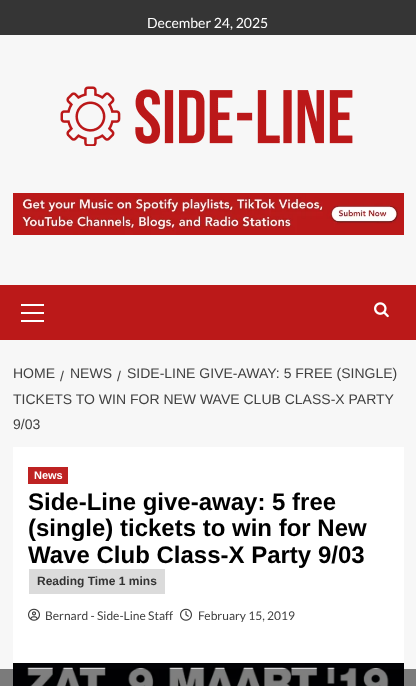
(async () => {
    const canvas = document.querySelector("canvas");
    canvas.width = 416;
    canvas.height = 686;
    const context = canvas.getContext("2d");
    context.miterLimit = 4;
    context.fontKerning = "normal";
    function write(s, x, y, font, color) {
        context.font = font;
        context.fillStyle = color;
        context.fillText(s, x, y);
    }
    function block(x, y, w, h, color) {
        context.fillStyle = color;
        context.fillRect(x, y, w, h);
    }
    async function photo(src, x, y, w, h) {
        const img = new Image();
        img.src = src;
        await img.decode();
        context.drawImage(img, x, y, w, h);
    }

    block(0, 0, 416, 686, "rgb(247, 247, 247)");
    block(0, 0, 416, 35, "rgb(53, 53, 53)");
    write("December 24, 2025", 147, 28, "14px Lato", "rgb(255, 255, 255)");
    await photo("media/1.png", 60, 86, 293, 60);
    await photo("media/2.png", 13, 193, 391, 42);
    block(0, 285, 416, 55, "rgb(187, 25, 25)");
    block(21, 312, 23, 2, "rgb(255, 255, 255)");
    block(21, 304, 23, 2, "rgb(255, 255, 255)");
    block(21, 320, 23, 2, "rgb(255, 255, 255)");
    await photo("media/3.png", 374, 302, 15, 16);
    write("/", 117, 381, "14px Liberation Sans", "rgb(64, 64, 64)");
    write("SIDE-LINE GIVE-AWAY: 5 FREE (SINGLE)", 127, 378, "14px Liberation Sans", "rgb(64, 64, 64)");
    write("TICKETS TO WIN FOR NEW WAVE CLUB CLASS-X PARTY", 13, 404, "14px Liberation Sans", "rgb(64, 64, 64)");
    write("9/03", 13, 429, "14px Liberation Sans", "rgb(64, 64, 64)");
    write("HOME", 13, 378, "14px Liberation Sans", "rgb(64, 64, 64)");
    write("/", 60, 381, "14px Liberation Sans", "rgb(64, 64, 64)");
    write("NEWS", 70, 378, "14px Liberation Sans", "rgb(64, 64, 64)");
    block(13, 447, 391, 216, "rgb(255, 255, 255)");
    block(28, 467, 40, 17, "rgb(190, 34, 34)");
    write("News", 34, 479, "bold 11px Liberation Sans", "rgb(255, 255, 255)");
    write("Side-Line give-away: 5 free", 28, 510, "bold 24px Liberation Sans", "rgb(0, 0, 0)");
    write("(single) tickets to win for New", 28, 536, "bold 24px Liberation Sans", "rgb(0, 0, 0)");
    write("Wave Club Class-X Party 9/03", 28, 563, "bold 24px Liberation Sans", "rgb(0, 0, 0)");
    block(29, 569, 136, 25, "rgb(219, 219, 219)");
    write("Reading Time 1 mins", 37, 585, "bold 12px Liberation Sans", "rgb(51, 51, 51)");
    await photo("media/4.png", 28, 608, 12, 13);
    write("Bernard - Side-Line Staff", 45, 620, "12px Lato", "rgb(64, 64, 64)");
    await photo("media/5.png", 180, 608, 12, 13);
    write("February 15, 2019", 198, 620, "12px Lato", "rgb(64, 64, 64)");
    await photo("media/6.png", 13, 663, 391, 23);
    block(0, 669, 416, 17, "rgba(0, 0, 0, 0.5)");
})();
